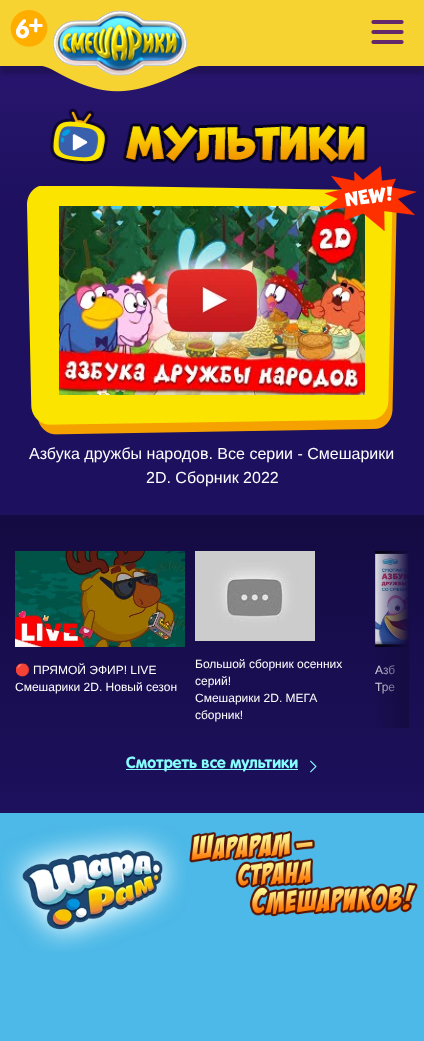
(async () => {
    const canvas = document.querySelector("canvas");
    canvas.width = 424;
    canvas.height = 1041;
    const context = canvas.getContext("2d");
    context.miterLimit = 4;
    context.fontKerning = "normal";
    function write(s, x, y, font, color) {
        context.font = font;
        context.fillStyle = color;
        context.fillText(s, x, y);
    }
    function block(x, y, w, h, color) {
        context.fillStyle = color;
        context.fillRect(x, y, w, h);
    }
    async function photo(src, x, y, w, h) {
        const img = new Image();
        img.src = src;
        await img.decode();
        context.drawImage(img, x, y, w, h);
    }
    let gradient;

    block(0, 0, 424, 1041, "rgb(76, 185, 232)");
    gradient = context.createLinearGradient(212, 66, 212, 813);
    gradient.addColorStop(0, "rgb(40, 22, 110)");
    gradient.addColorStop(0.2, "rgb(29, 16, 94)");
    gradient.addColorStop(1, "rgb(29, 16, 94)");
    context.fillStyle = gradient;
    context.fillRect(0, 66, 424, 449);
    context.fillStyle = "rgba(0, 0, 0, 0.2)";
    context.filter = "blur(2.5px)";
    context.beginPath();
    context.rect(0, 8, 424, 66);
    context.fill();
    context.filter = "none";
    block(0, 0, 424, 66, "rgb(246, 211, 48)");
    await photo("media/2.png", 42, 10, 157, 82);
    await photo("media/1.png", 10, 10, 38, 37);
    await photo("media/3.png", 371, 20, 33, 24);
    await photo("media/4.png", 49, 108, 319, 57);
    await photo("media/6.png", 27, 186, 370, 249);
    await photo("media/7.png", 59, 206, 306, 189);
    await photo("media/5.png", 321, 166, 96, 65);
    await photo("media/8.png", 143, 245, 138, 111);
    write("Азбука дружбы народов. Все серии - Смешарики", 29, 459, "16px Liberation Sans", "rgb(255, 255, 255)");
    write("2D. Сборник 2022", 146, 483, "16px Liberation Sans", "rgb(255, 255, 255)");
    gradient = context.createLinearGradient(212, 515, 212, 813);
    gradient.addColorStop(0, "rgb(20, 11, 66)");
    gradient.addColorStop(1, "rgb(29, 16, 93)");
    context.fillStyle = gradient;
    context.fillRect(0, 515, 424, 298);
    await photo("media/11.png", 375, 551, 34, 96);
    write("Азб", 375, 674, "12px Liberation Sans", "rgb(255, 255, 255)");
    write("Тре", 375, 691, "12px Liberation Sans", "rgb(255, 255, 255)");
    gradient = context.createLinearGradient(370, 640, 409, 640);
    gradient.addColorStop(0, "rgba(20, 12, 66, 0)");
    gradient.addColorStop(1, "rgb(20, 12, 66)");
    context.fillStyle = gradient;
    context.fillRect(375, 551, 34, 177);
    await photo("media/9.png", 15, 551, 170, 96);
    write("🔴", 15, 674, "12px Noto Color Emoji", "rgb(255, 255, 255)");
    write("ПРЯМОЙ ЭФИР! LIVE", 33, 674, "12px Liberation Sans", "rgb(255, 255, 255)");
    write("Смешарики 2D. Новый сезон", 15, 691, "12px Liberation Sans", "rgb(255, 255, 255)");
    await photo("media/10.png", 195, 551, 120, 90);
    write("Большой сборник осенних", 195, 668, "12px Liberation Sans", "rgb(255, 255, 255)");
    write("серий!", 195, 685, "12px Liberation Sans", "rgb(255, 255, 255)");
    write("Смешарики 2D. МЕГА", 195, 702, "12px Liberation Sans", "rgb(255, 255, 255)");
    write("сборник!", 195, 719, "12px Liberation Sans", "rgb(255, 255, 255)");
    block(126, 769, 172, 1, "rgb(134, 254, 255)");
    write("Смотреть все мультики", 126, 768, "bold 16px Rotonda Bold", "rgb(134, 254, 255)");
    await photo("media/12.png", 310, 760, 7, 13);
    await photo("media/13.png", 1, 825, 185, 128);
    await photo("media/14.png", 189, 831, 229, 86);
})();
